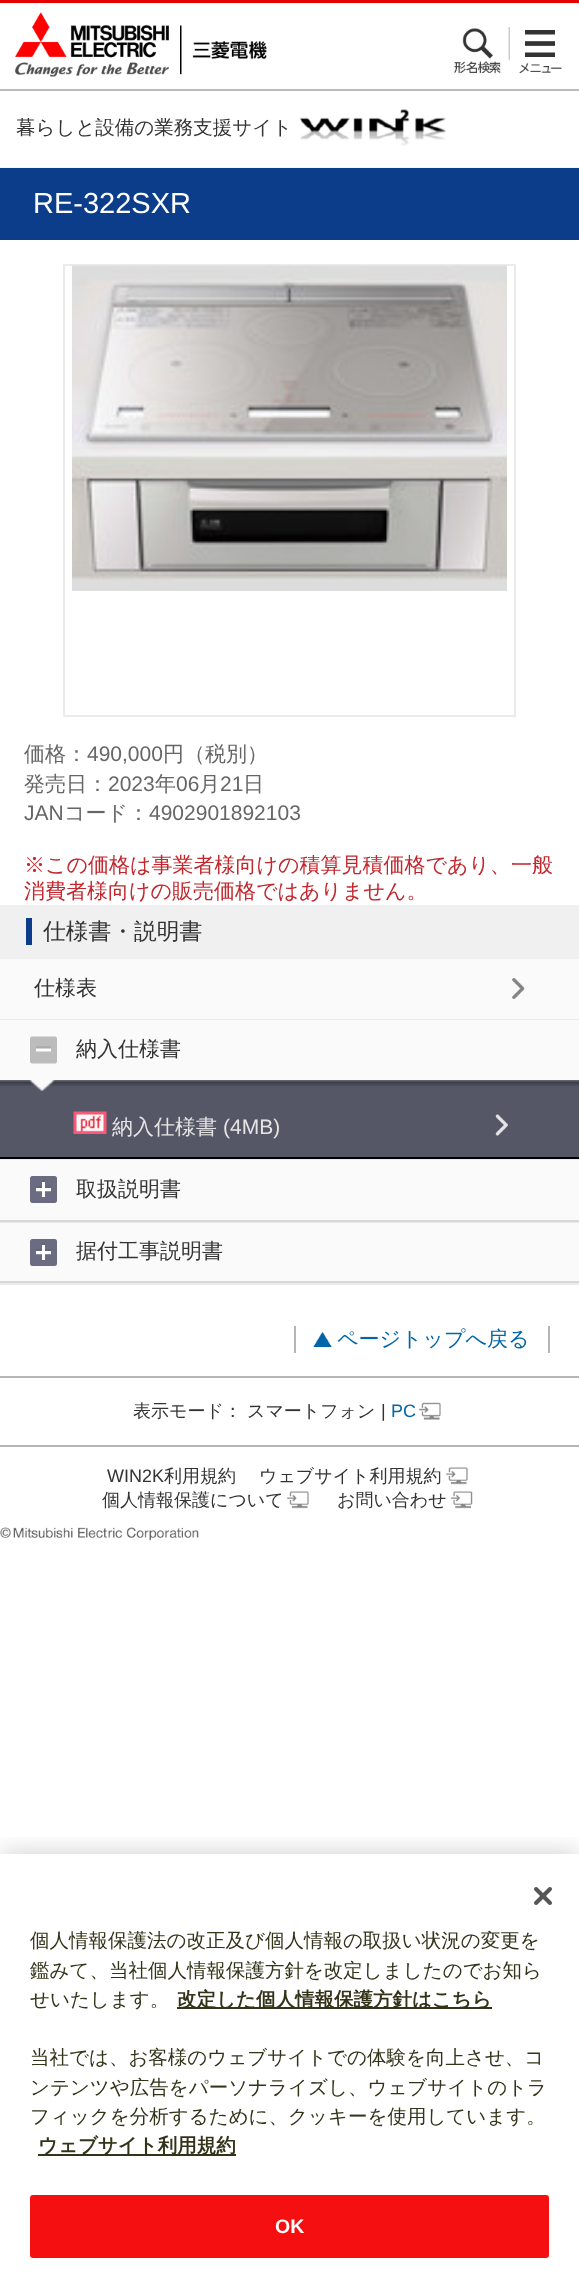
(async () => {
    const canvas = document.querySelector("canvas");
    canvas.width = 579;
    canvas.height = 2281;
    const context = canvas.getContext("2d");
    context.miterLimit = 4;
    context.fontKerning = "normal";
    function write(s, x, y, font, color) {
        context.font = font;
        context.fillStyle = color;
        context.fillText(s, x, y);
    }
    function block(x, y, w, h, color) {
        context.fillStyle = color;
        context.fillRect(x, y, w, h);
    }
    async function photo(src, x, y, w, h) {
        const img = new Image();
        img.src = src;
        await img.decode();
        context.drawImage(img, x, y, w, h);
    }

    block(0, 0, 579, 2281, "rgb(255, 255, 255)");
    block(0, 0, 579, 3, "rgb(230, 0, 0)");
    block(0, 89, 579, 2, "rgb(187, 187, 187)");
    await photo("media/1.png", 15, 12, 252, 65);
    await photo("media/2.png", 454, 27, 56, 47);
    await photo("media/3.png", 519, 30, 43, 44);
    block(0, 167, 579, 1, "rgb(245, 245, 245)");
    write("暮らしと設備の業務支援サイト", 16, 134, "500 19.5px WenQuanYi Zen Hei", "rgb(51, 51, 51)");
    await photo("media/4.png", 300, 109, 146, 37);
    block(0, 168, 579, 72, "rgb(11, 61, 138)");
    write("RE-322SXR", 33, 213, "29px Liberation Sans", "rgb(255, 255, 255)");
    context.strokeStyle = "rgb(235, 235, 235)";
    context.lineWidth = 2;
    context.strokeRect(64, 265, 451, 451);
    await photo("media/5.png", 72, 265, 435, 326);
    write("価格：", 24, 761, "500 21px WenQuanYi Zen Hei", "rgb(102, 102, 102)");
    write("490,000", 87, 761, "21px Liberation Sans", "rgb(102, 102, 102)");
    write("円（税別）", 163, 761, "500 21px WenQuanYi Zen Hei", "rgb(102, 102, 102)");
    write("発売日：", 24, 791, "500 21px WenQuanYi Zen Hei", "rgb(102, 102, 102)");
    write("2023", 108, 791, "21px Liberation Sans", "rgb(102, 102, 102)");
    write("年", 155, 791, "500 21px WenQuanYi Zen Hei", "rgb(102, 102, 102)");
    write("06", 176, 791, "21px Liberation Sans", "rgb(102, 102, 102)");
    write("月", 199, 791, "500 21px WenQuanYi Zen Hei", "rgb(102, 102, 102)");
    write("21", 220, 791, "21px Liberation Sans", "rgb(102, 102, 102)");
    write("日", 243, 791, "500 21px WenQuanYi Zen Hei", "rgb(102, 102, 102)");
    write("JAN", 24, 820, "21px Liberation Sans", "rgb(102, 102, 102)");
    write("コード：", 64, 820, "500 21px WenQuanYi Zen Hei", "rgb(102, 102, 102)");
    write("4902901892103", 149, 820, "21px Liberation Sans", "rgb(102, 102, 102)");
    write("※この価格は事業者様向けの積算見積価格であり、一般", 24, 872, "500 21px WenQuanYi Zen Hei", "rgb(193, 39, 45)");
    write("消費者様向けの販売価格ではありません。", 24, 898, "500 21px WenQuanYi Zen Hei", "rgb(193, 39, 45)");
    block(0, 905, 579, 54, "rgb(240, 240, 240)");
    block(26, 918, 6, 27, "rgb(11, 61, 138)");
    write("仕様書・説明書", 43, 939, "500 22.75px WenQuanYi Zen Hei", "rgb(51, 51, 51)");
    block(0, 959, 579, 60, "rgb(250, 250, 250)");
    block(0, 1019, 579, 1, "rgb(235, 235, 235)");
    await photo("media/6.png", 512, 978, 13, 21);
    write("仕様表", 34, 995, "500 21px WenQuanYi Zen Hei", "rgb(51, 51, 51)");
    block(0, 1020, 579, 60, "rgb(250, 250, 250)");
    block(0, 1159, 579, 1, "rgb(235, 235, 235)");
    await photo("media/7.png", 30, 1036, 27, 28);
    write("納入仕様書", 76, 1056, "500 21px WenQuanYi Zen Hei", "rgb(51, 51, 51)");
    await photo("media/8.png", 0, 1080, 579, 15);
    block(0, 1095, 579, 62, "rgb(85, 86, 102)");
    block(0, 1157, 579, 2, "rgb(0, 0, 0)");
    await photo("media/9.png", 495, 1114, 13, 22);
    await photo("media/10.png", 73, 1111, 34, 23);
    write("納入仕様書", 112, 1134, "500 21px WenQuanYi Zen Hei", "rgb(229, 229, 229)");
    write("(4MB)", 223, 1134, "21px Liberation Sans", "rgb(229, 229, 229)");
    block(0, 1160, 579, 60, "rgb(250, 250, 250)");
    block(0, 1222, 579, 1, "rgb(235, 235, 235)");
    await photo("media/11.png", 30, 1176, 27, 27);
    block(0, 1220, 579, 2, "rgb(215, 215, 215)");
    write("取扱説明書", 76, 1196, "500 21px WenQuanYi Zen Hei", "rgb(51, 51, 51)");
    block(0, 1223, 579, 58, "rgb(250, 250, 250)");
    block(0, 1283, 579, 2, "rgb(235, 235, 235)");
    await photo("media/11.png", 30, 1239, 27, 27);
    block(0, 1281, 579, 2, "rgb(215, 215, 215)");
    write("据付工事説明書", 76, 1258, "500 21px WenQuanYi Zen Hei", "rgb(51, 51, 51)");
    await photo("media/12.png", 313, 1332, 19, 15);
    block(548, 1326, 2, 27, "rgb(181, 181, 181)");
    block(294, 1326, 2, 27, "rgb(181, 181, 181)");
    write("ページトップへ戻る", 337, 1346, "500 21px WenQuanYi Zen Hei", "rgb(0, 102, 167)");
    block(0, 1376, 579, 2, "rgb(181, 181, 181)");
    write("表示モード：", 133, 1417, "500 18px WenQuanYi Zen Hei", "rgb(51, 51, 51)");
    write("スマートフォン", 247, 1417, "500 18px WenQuanYi Zen Hei", "rgb(51, 51, 51)");
    write("|", 381, 1417, "18px Liberation Sans", "rgb(51, 51, 51)");
    write("PC", 391, 1417, "18px Liberation Sans", "rgb(0, 102, 167)");
    await photo("media/13.png", 419, 1402, 22, 18);
    block(0, 1445, 579, 2, "rgb(181, 181, 181)");
    write("WIN2K", 107, 1482, "18px Liberation Sans", "rgb(51, 51, 51)");
    write("利用規約", 164, 1482, "500 18px WenQuanYi Zen Hei", "rgb(51, 51, 51)");
    write("ウェブサイト利用規約", 259, 1482, "500 18px WenQuanYi Zen Hei", "rgb(51, 51, 51)");
    await photo("media/14.png", 446, 1467, 22, 18);
    write("個人情報保護について", 102, 1506, "500 18px WenQuanYi Zen Hei", "rgb(51, 51, 51)");
    await photo("media/15.png", 287, 1491, 22, 18);
    write("お問い合わせ", 337, 1506, "500 18px WenQuanYi Zen Hei", "rgb(51, 51, 51)");
    await photo("media/16.png", 450, 1491, 23, 18);
    await photo("media/17.png", 0, 1527, 199, 14);
    context.save();
    context.beginPath();
    context.rect(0, 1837, 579, 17);
    context.clip();
    context.fillStyle = "rgba(0, 0, 0, 0.2)";
    context.filter = "blur(13.5px)";
    context.beginPath();
    context.rect(0, 1854, 579, 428);
    context.fill();
    context.filter = "none";
    context.restore();
    await photo("media/18.png", 534, 1887, 18, 18);
    write("個人情報保護法の改正及び個人情報の取扱い状況の変更を", 30, 1947, "500 19.5px WenQuanYi Zen Hei", "rgb(51, 51, 26)");
    write("鑑みて、当社個人情報保護方針を改定しましたのでお知ら", 30, 1977, "500 19.5px WenQuanYi Zen Hei", "rgb(51, 51, 26)");
    write("せいたします。", 30, 2006, "500 19.5px WenQuanYi Zen Hei", "rgb(51, 51, 26)");
    block(177, 2007, 315, 2, "rgb(51, 51, 26)");
    write("改定した個人情報保護方針はこちら", 177, 2006, "bold 19.5px WenQuanYi Zen Hei", "rgb(51, 51, 26)");
    write("当社では、お客様のウェブサイトでの体験を向上させ、コ", 30, 2064, "500 19.5px WenQuanYi Zen Hei", "rgb(51, 51, 26)");
    write("ンテンツや広告をパーソナライズし、ウェブサイトのトラ", 30, 2094, "500 19.5px WenQuanYi Zen Hei", "rgb(51, 51, 26)");
    write("フィックを分析するために、クッキーを使用しています。", 30, 2123, "500 19.5px WenQuanYi Zen Hei", "rgb(51, 51, 26)");
    block(38, 2154, 198, 2, "rgb(51, 51, 26)");
    write("ウェブサイト利用規約", 38, 2152, "bold 19.5px WenQuanYi Zen Hei", "rgb(51, 51, 26)");
    context.fillStyle = "rgb(245, 15, 16)";
    context.beginPath();
    context.roundRect(31, 2196, 517, 61, 2);
    context.fill();
    context.strokeStyle = "rgb(245, 15, 16)";
    context.stroke();
    write("OK", 275, 2233, "bold 19.5px Liberation Sans", "rgb(255, 255, 255)");
})();
